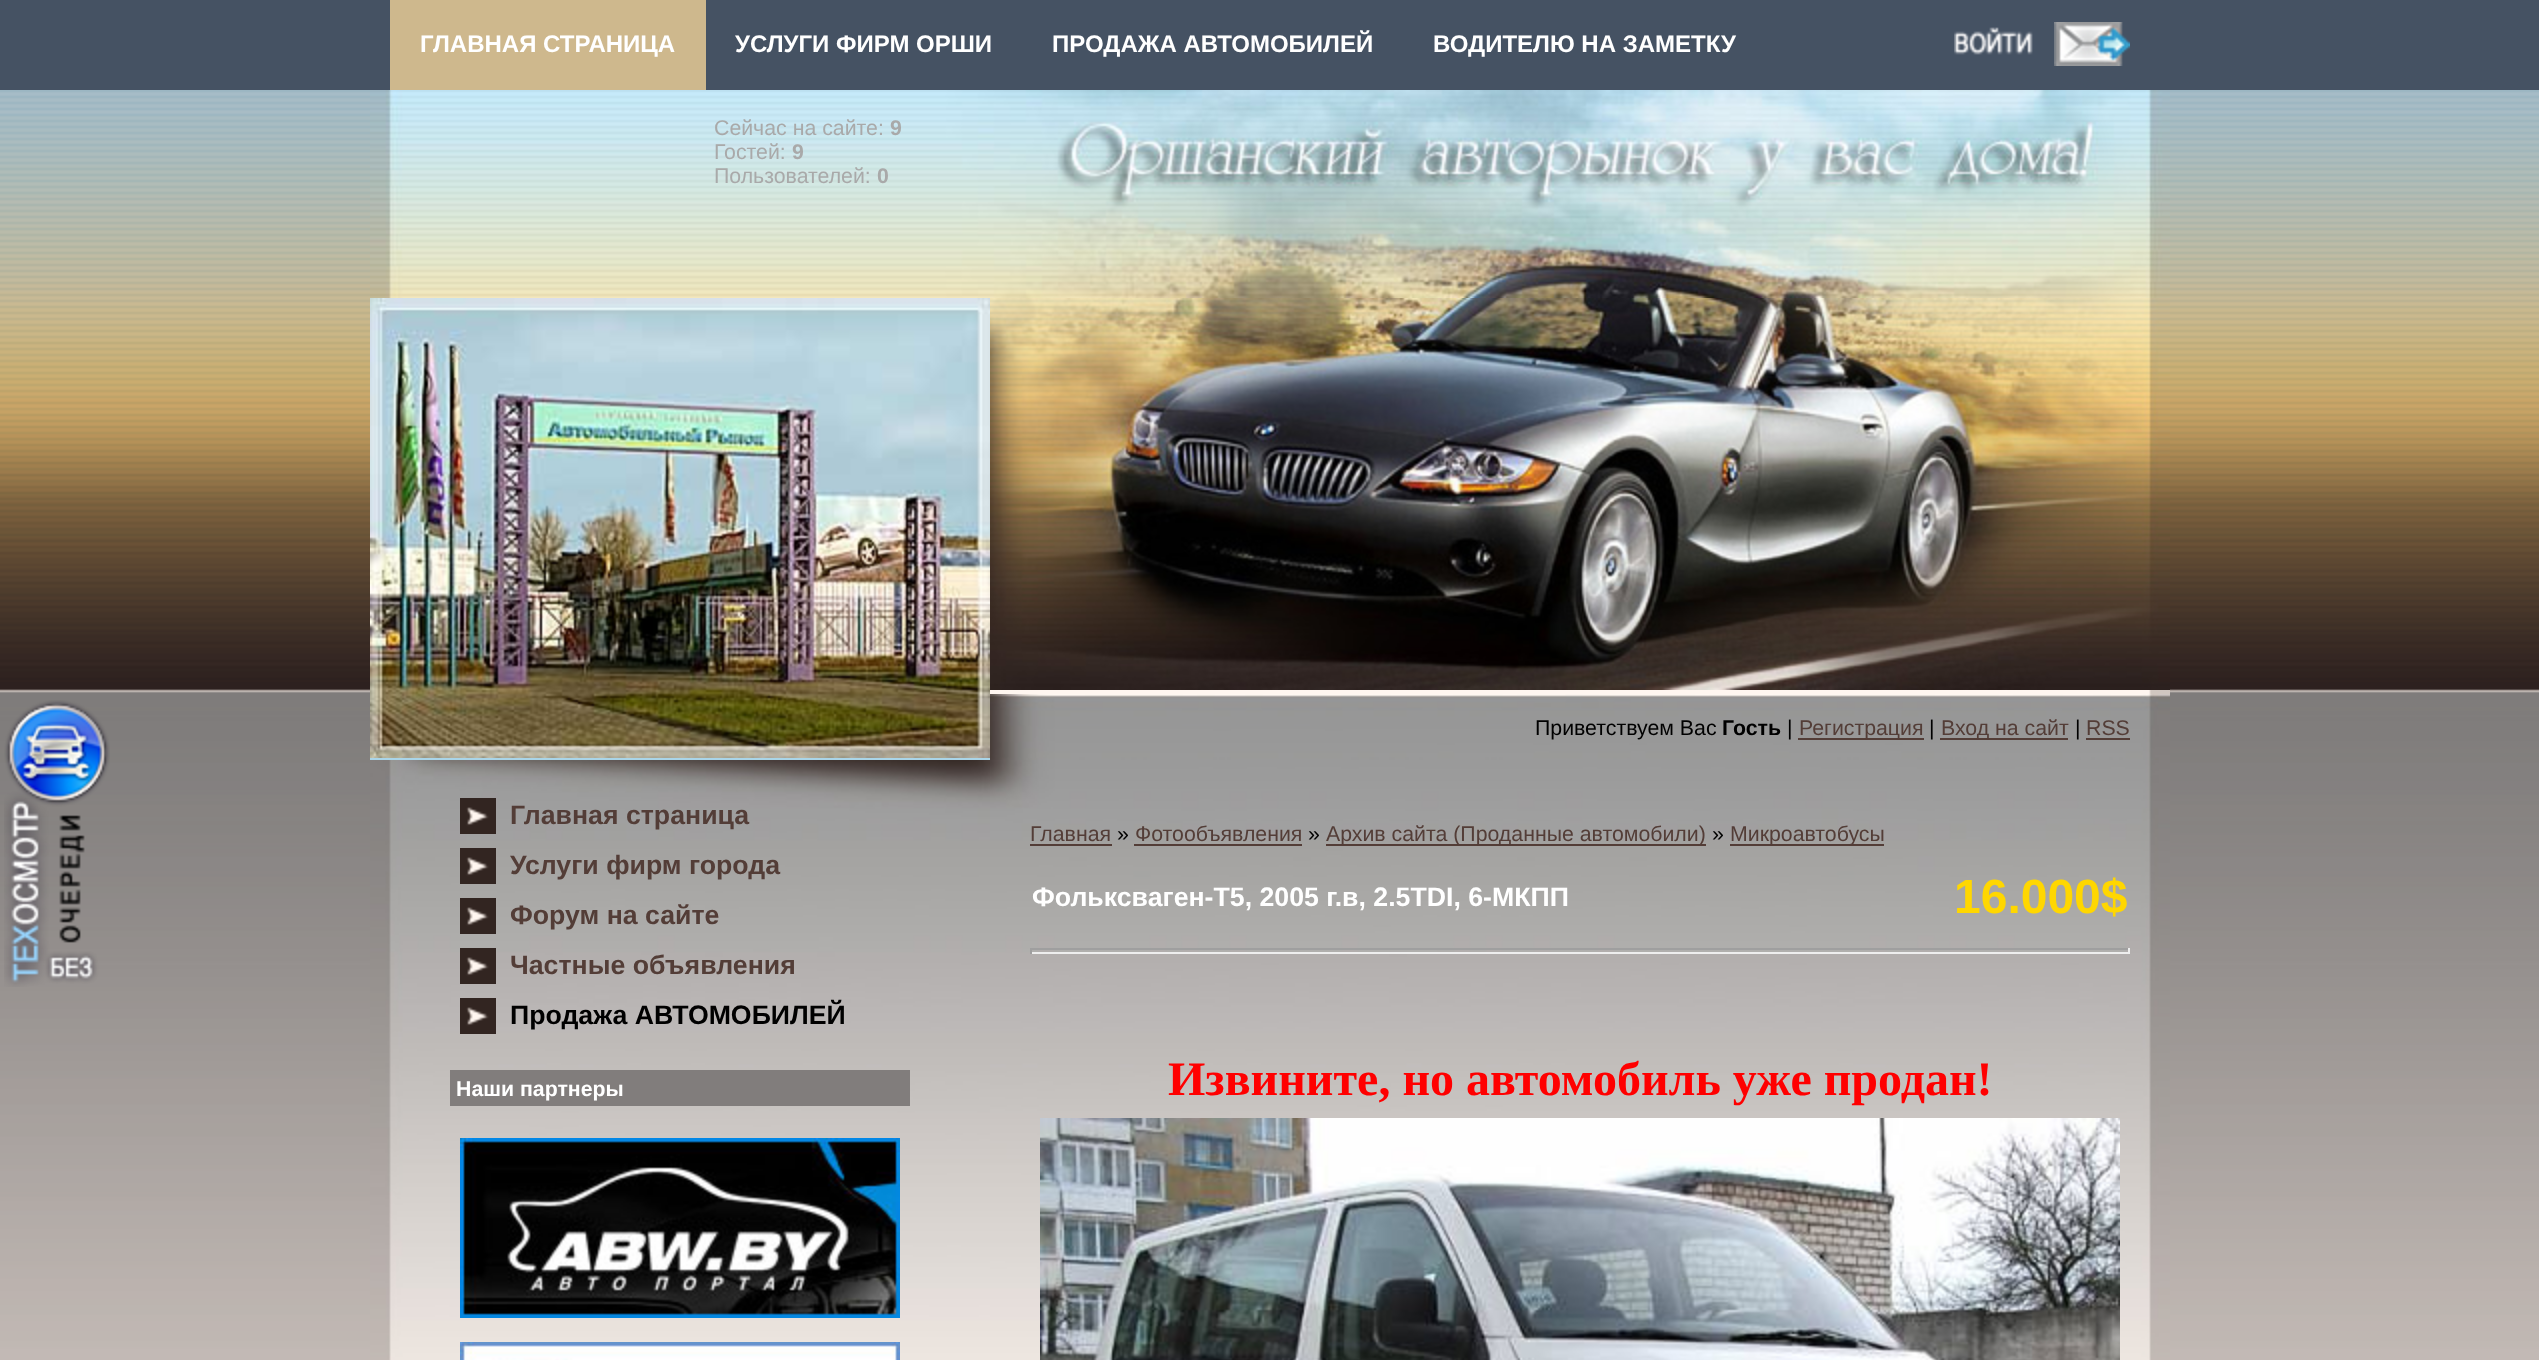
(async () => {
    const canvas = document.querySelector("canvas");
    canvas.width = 2539;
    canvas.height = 1360;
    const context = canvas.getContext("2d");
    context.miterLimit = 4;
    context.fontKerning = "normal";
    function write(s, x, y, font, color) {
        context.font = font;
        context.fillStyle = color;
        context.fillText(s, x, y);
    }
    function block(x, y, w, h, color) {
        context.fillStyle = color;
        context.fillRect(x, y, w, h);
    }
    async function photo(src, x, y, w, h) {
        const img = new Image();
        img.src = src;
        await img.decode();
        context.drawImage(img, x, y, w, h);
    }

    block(0, 0, 2539, 1360, "rgb(255, 255, 255)");
    block(0, 0, 2539, 90, "rgb(69, 82, 99)");
    block(390, 0, 316, 90, "rgb(206, 184, 141)");
    write("ГЛАВНАЯ СТРАНИЦА", 420, 52, "bold 24px Liberation Sans", "rgb(255, 255, 255)");
    write("УСЛУГИ ФИРМ ОРШИ", 735, 52, "bold 24px Liberation Sans", "rgb(255, 255, 255)");
    write("ПРОДАЖА АВТОМОБИЛЕЙ", 1052, 52, "bold 24px Liberation Sans", "rgb(255, 255, 255)");
    write("ВОДИТЕЛЮ НА ЗАМЕТКУ", 1433, 52, "bold 24px Liberation Sans", "rgb(255, 255, 255)");
    await photo("media/1.png", 1954, 27, 79, 28);
    await photo("media/2.png", 2054, 22, 76, 44);
    await photo("media/3.png", 0, 90, 2539, 1270);
    await photo("media/4.png", 990, 690, 1180, 4);
    await photo("media/5.png", 370, 90, 1800, 208);
    write("Сейчас на сайте:", 714, 135, "21.3px Liberation Sans", "rgb(169, 169, 169)");
    write("9", 890, 135, "bold 21.3px Liberation Sans", "rgb(169, 169, 169)");
    write("Гостей:", 714, 159, "21.3px Liberation Sans", "rgb(169, 169, 169)");
    write("9", 792, 159, "bold 21.3px Liberation Sans", "rgb(169, 169, 169)");
    write("Пользователей:", 714, 183, "21.3px Liberation Sans", "rgb(169, 169, 169)");
    write("0", 877, 183, "bold 21.3px Liberation Sans", "rgb(169, 169, 169)");
    block(370, 758, 620, 2, "rgb(170, 213, 232)");
    await photo("media/6.png", 370, 298, 620, 460);
    await photo("media/7.png", 990, 298, 1180, 392);
    await photo("media/8.png", 990, 694, 1180, 66);
    write("Приветствуем Вас", 1535, 735, "21.3px Liberation Sans", "rgb(0, 0, 0)");
    write("Гость", 1722, 735, "bold 21.3px Liberation Sans", "rgb(0, 0, 0)");
    write("|", 1787, 735, "21.3px Liberation Sans", "rgb(0, 0, 0)");
    block(1798, 738, 126, 2, "rgb(83, 61, 55)");
    write("Регистрация", 1799, 735, "21.3px Liberation Sans", "rgb(83, 61, 55)");
    write("|", 1929, 735, "21.3px Liberation Sans", "rgb(0, 0, 0)");
    block(1940, 738, 128, 2, "rgb(83, 61, 55)");
    write("Вход на сайт", 1941, 735, "21.3px Liberation Sans", "rgb(83, 61, 55)");
    write("|", 2075, 735, "21.3px Liberation Sans", "rgb(0, 0, 0)");
    write("RSS", 2086, 735, "21.3px Liberation Sans", "rgb(83, 61, 55)");
    block(2086, 738, 44, 2, "rgb(83, 61, 55)");
    await photo("media/9.png", 370, 760, 620, 600);
    await photo("media/10.png", 4, 700, 106, 287);
    await photo("media/11.png", 460, 798, 36, 36);
    write("Главная страница", 510, 824, "bold 26.7px Liberation Sans", "rgb(83, 61, 55)");
    await photo("media/11.png", 460, 848, 36, 36);
    write("Услуги фирм города", 510, 874, "bold 26.7px Liberation Sans", "rgb(83, 61, 55)");
    await photo("media/11.png", 460, 898, 36, 36);
    write("Форум на сайте", 510, 924, "bold 26.7px Liberation Sans", "rgb(83, 61, 55)");
    await photo("media/11.png", 460, 948, 36, 36);
    write("Частные объявления", 510, 974, "bold 26.7px Liberation Sans", "rgb(83, 61, 55)");
    await photo("media/11.png", 460, 998, 36, 36);
    write("Продажа АВТОМОБИЛЕЙ", 510, 1024, "bold 26.7px Liberation Sans", "rgb(0, 0, 0)");
    block(450, 1070, 460, 36, "rgb(129, 125, 124)");
    write("Наши партнеры", 456, 1096, "bold 21.3px Liberation Sans", "rgb(255, 255, 255)");
    await photo("media/12.png", 460, 1138, 440, 180);
    await photo("media/13.png", 460, 1342, 440, 18);
    await photo("media/14.png", 990, 760, 1180, 600);
    write("Главная", 1030, 841, "21.3px Liberation Sans", "rgb(83, 61, 55)");
    block(1030, 844, 82, 2, "rgb(83, 61, 55)");
    write("»", 1117, 841, "21.3px Liberation Sans", "rgb(0, 0, 0)");
    write("Фотообъявления", 1135, 841, "21.3px Liberation Sans", "rgb(83, 61, 55)");
    block(1134, 844, 168, 2, "rgb(83, 61, 55)");
    write("»", 1308, 841, "21.3px Liberation Sans", "rgb(0, 0, 0)");
    block(1326, 844, 380, 2, "rgb(83, 61, 55)");
    write("Архив сайта (Проданные автомобили)", 1326, 841, "21.3px Liberation Sans", "rgb(83, 61, 55)");
    write("»", 1712, 841, "21.3px Liberation Sans", "rgb(0, 0, 0)");
    block(1730, 844, 154, 2, "rgb(83, 61, 55)");
    write("Микроавтобусы", 1730, 841, "21.3px Liberation Sans", "rgb(83, 61, 55)");
    write("Фольксваген-Т5, 2005 г.в, 2.5TDI, 6-МКПП", 1032, 906, "bold 26.7px Liberation Sans", "rgb(255, 255, 255)");
    write("16.000$", 1954, 913, "bold 48px Liberation Sans", "rgb(255, 215, 0)");
    block(1030, 948, 1100, 2, "rgb(159, 159, 159)");
    block(2128, 948, 2, 6, "rgb(238, 238, 238)");
    block(1030, 952, 1100, 2, "rgb(238, 238, 238)");
    block(1030, 948, 2, 6, "rgb(159, 159, 159)");
    write("Извините, но автомобиль уже продан!", 1168, 1095, "bold 48px Liberation Serif", "rgb(255, 0, 0)");
    await photo("media/15.png", 1040, 1118, 1080, 242);
})();
